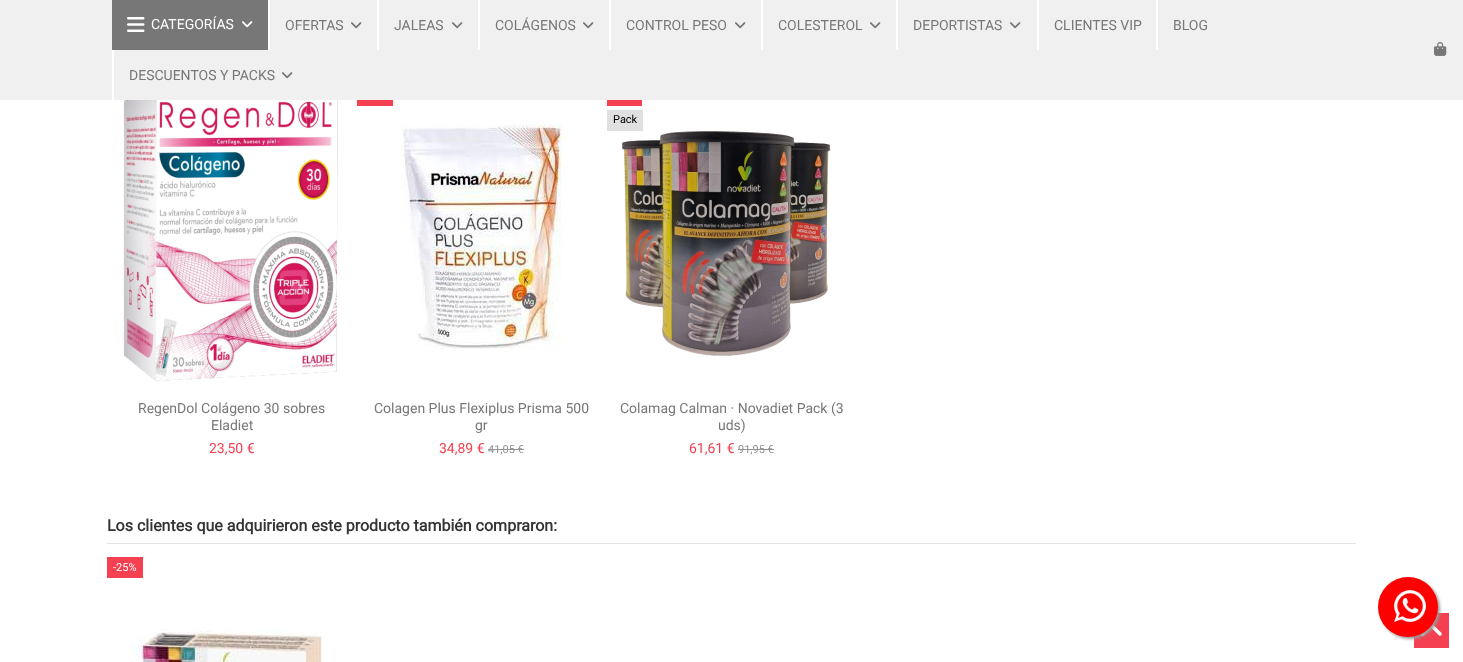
(async () => {
    const canvas = document.querySelector("canvas");
    canvas.width = 1463;
    canvas.height = 662;
    const context = canvas.getContext("2d");
    context.miterLimit = 4;
    context.fontKerning = "normal";
    function write(s, x, y, font, color) {
        context.font = font;
        context.fillStyle = color;
        context.fillText(s, x, y);
    }
    function block(x, y, w, h, color) {
        context.fillStyle = color;
        context.fillRect(x, y, w, h);
    }
    async function photo(src, x, y, w, h) {
        const img = new Image();
        img.src = src;
        await img.decode();
        context.drawImage(img, x, y, w, h);
    }

    block(0, 0, 1463, 662, "rgb(255, 255, 255)");
    block(0, 0, 1463, 100, "rgb(240, 240, 240)");
    block(112, 0, 156, 50, "rgb(119, 119, 119)");
    await photo("media/1.png", 127, 17, 18, 15);
    write("CATEGORÍAS", 151, 29, "14px Roboto", "rgb(255, 255, 255)");
    await photo("media/2.png", 242, 21, 11, 7);
    block(268, 0, 2, 50, "rgb(255, 255, 255)");
    write("OFERTAS", 285, 30, "14px Roboto", "rgb(119, 119, 119)");
    await photo("media/3.png", 351, 22, 11, 7);
    block(377, 0, 2, 50, "rgb(255, 255, 255)");
    write("JALEAS", 394, 30, "14px Roboto", "rgb(119, 119, 119)");
    await photo("media/3.png", 452, 22, 11, 7);
    block(478, 0, 2, 50, "rgb(255, 255, 255)");
    write("COLÁGENOS", 495, 30, "14px Roboto", "rgb(119, 119, 119)");
    await photo("media/3.png", 583, 22, 11, 7);
    block(609, 0, 2, 50, "rgb(255, 255, 255)");
    write("CONTROL PESO", 626, 30, "14px Roboto", "rgb(119, 119, 119)");
    await photo("media/3.png", 735, 22, 11, 7);
    block(761, 0, 2, 50, "rgb(255, 255, 255)");
    write("COLESTEROL", 778, 30, "14px Roboto", "rgb(119, 119, 119)");
    await photo("media/3.png", 870, 22, 11, 7);
    block(896, 0, 2, 50, "rgb(255, 255, 255)");
    write("DEPORTISTAS", 913, 30, "14px Roboto", "rgb(119, 119, 119)");
    await photo("media/3.png", 1010, 22, 11, 7);
    block(1037, 0, 2, 50, "rgb(255, 255, 255)");
    write("CLIENTES VIP", 1054, 30, "14px Roboto", "rgb(119, 119, 119)");
    block(1156, 0, 2, 50, "rgb(255, 255, 255)");
    write("BLOG", 1173, 30, "14px Roboto", "rgb(119, 119, 119)");
    block(112, 50, 2, 50, "rgb(255, 255, 255)");
    write("DESCUENTOS Y PACKS", 129, 80, "14px Roboto", "rgb(119, 119, 119)");
    await photo("media/3.png", 282, 72, 11, 7);
    await photo("media/4.png", 1434, 42, 13, 14);
    await photo("media/5.png", 123, 100, 215, 281);
    write("RegenDol Colágeno 30 sobres", 138, 413, "14px Roboto", "rgb(119, 119, 119)");
    write("Eladiet", 211, 430, "14px Roboto", "rgb(119, 119, 119)");
    write("23,50 €", 209, 453, "14px Roboto", "rgb(244, 64, 81)");
    block(357, 100, 36, 6, "rgb(244, 64, 81)");
    await photo("media/6.png", 401, 124, 168, 225);
    write("Colagen Plus Flexiplus Prisma 500", 374, 413, "14px Roboto", "rgb(119, 119, 119)");
    write("gr", 475, 430, "14px Roboto", "rgb(119, 119, 119)");
    write("34,89 €", 439, 453, "14px Roboto", "rgb(244, 64, 81)");
    write("41,05 €", 488, 453, "11px Roboto", "rgb(146, 146, 146)");
    block(488, 449, 36, 1, "rgb(146, 146, 146)");
    block(607, 100, 35, 6, "rgb(244, 64, 81)");
    block(607, 110, 36, 21, "rgb(224, 224, 224)");
    write("Pack", 613, 123, "11px Roboto", "rgb(0, 0, 0)");
    await photo("media/7.png", 621, 131, 210, 225);
    write("Colamag Calman · Novadiet Pack (3", 620, 413, "14px Roboto", "rgb(119, 119, 119)");
    write("uds)", 718, 430, "14px Roboto", "rgb(119, 119, 119)");
    write("61,61 €", 689, 453, "14px Roboto", "rgb(244, 64, 81)");
    write("91,95 €", 738, 453, "11px Roboto", "rgb(146, 146, 146)");
    block(738, 449, 36, 1, "rgb(146, 146, 146)");
    block(107, 543, 1249, 1, "rgb(227, 227, 227)");
    write("Los clientes que adquirieron este producto también compraron:", 107, 531, "bold 16px Roboto", "rgb(51, 51, 51)");
    block(107, 557, 36, 21, "rgb(244, 64, 81)");
    write("-25%", 113, 571, "11px Roboto", "rgb(255, 255, 255)");
    await photo("media/8.png", 130, 629, 193, 33);
    block(1414, 613, 35, 35, "rgb(244, 64, 81)");
    await photo("media/10.png", 1420, 623, 22, 13);
    context.fillStyle = "rgb(153, 153, 153)";
    context.filter = "blur(1.5px)";
    context.beginPath();
    context.roundRect(1380, 579, 60, 60, 30);
    context.fill();
    context.filter = "none";
    context.fillStyle = "rgb(255, 0, 0)";
    context.beginPath();
    context.arc(1408, 607, 30, 0, Math.PI * 2);
    context.fill();
    await photo("media/9.png", 1394, 590, 32, 32);
})();
